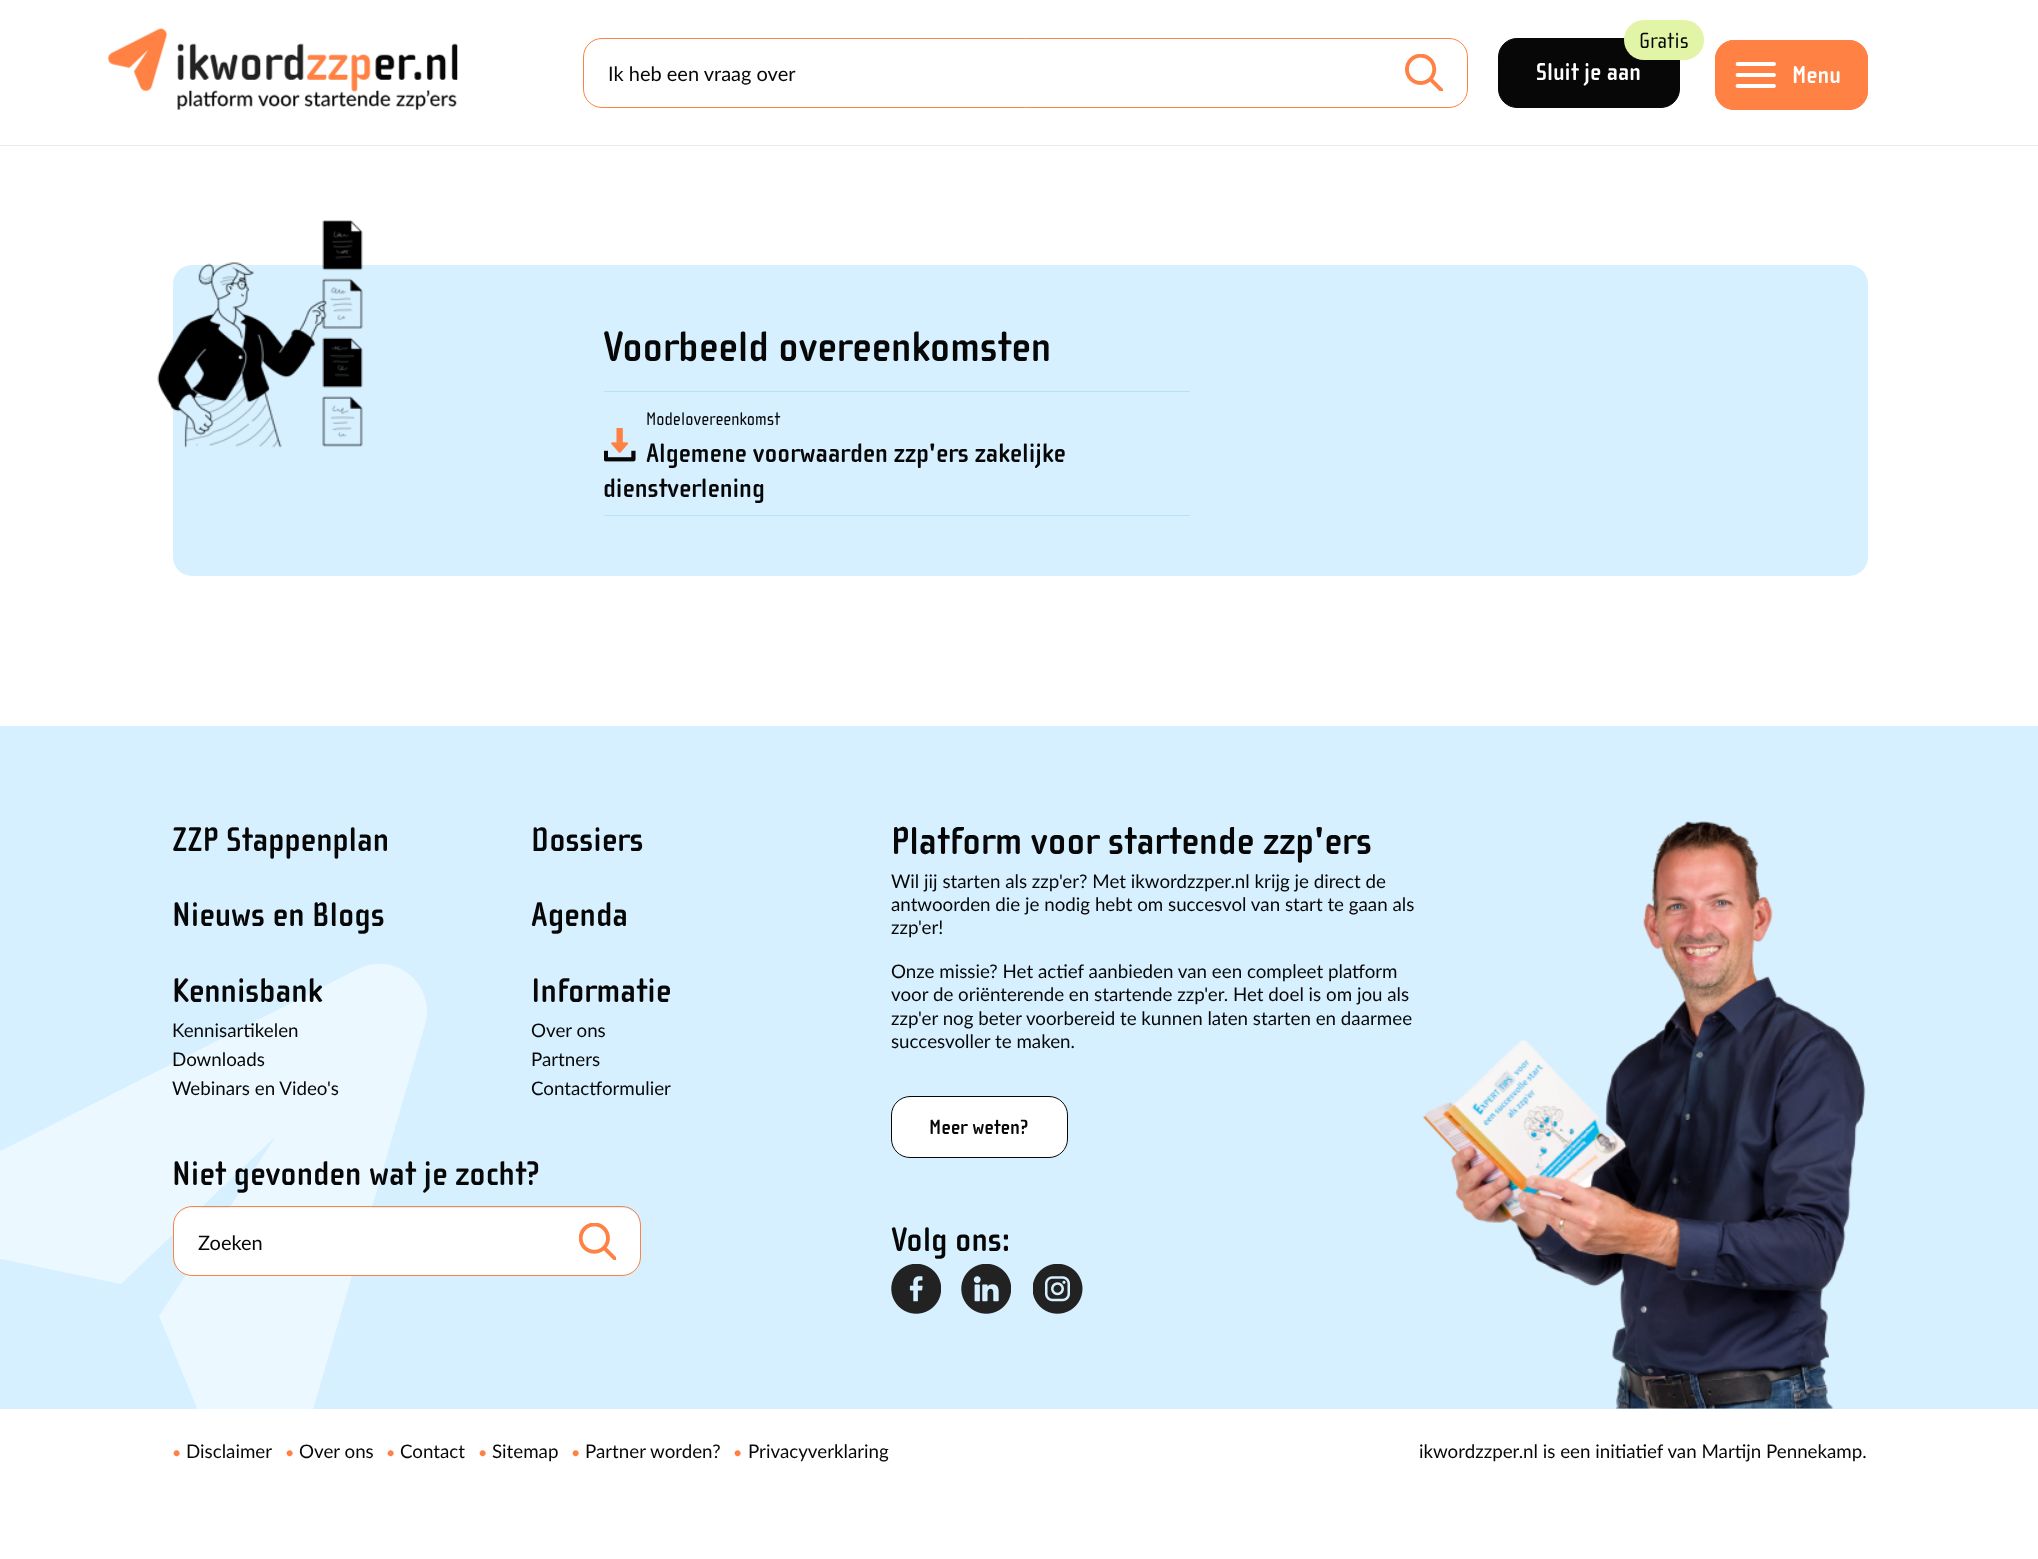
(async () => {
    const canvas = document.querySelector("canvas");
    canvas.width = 2038;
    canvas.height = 1559;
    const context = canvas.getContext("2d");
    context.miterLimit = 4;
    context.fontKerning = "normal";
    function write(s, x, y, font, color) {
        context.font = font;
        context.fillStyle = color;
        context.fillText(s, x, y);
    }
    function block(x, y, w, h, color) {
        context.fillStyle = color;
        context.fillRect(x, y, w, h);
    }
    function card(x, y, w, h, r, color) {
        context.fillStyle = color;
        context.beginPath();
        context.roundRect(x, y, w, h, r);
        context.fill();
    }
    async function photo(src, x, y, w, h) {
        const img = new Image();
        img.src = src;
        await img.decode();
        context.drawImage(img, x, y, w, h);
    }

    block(0, 0, 2038, 1559, "rgb(255, 255, 255)");
    block(0, 145, 2038, 1, "rgb(236, 235, 235)");
    await photo("media/1.png", 108, 28, 350, 82);
    context.beginPath();
    context.roundRect(583.5, 38.5, 884, 69, 18.5);
    context.strokeStyle = "rgb(255, 129, 68)";
    context.stroke();
    write("Ik heb een vraag over", 608, 81, "20px Lato", "rgb(7, 7, 7)");
    await photo("media/2.png", 1405, 54, 38, 37);
    context.beginPath();
    context.roundRect(1498.5, 38.5, 181, 69, 18.5);
    context.fill();
    context.strokeStyle = "rgb(7, 7, 7)";
    context.stroke();
    card(1624, 20, 80, 40, 20, "rgb(226, 244, 166)");
    write("Gratis", 1639, 48, "22.5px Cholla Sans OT", "rgb(7, 7, 7)");
    write("Sluit je aan", 1536, 80, "bold 25px Cholla Sans OT", "rgb(255, 255, 255)");
    card(1715, 40, 153, 70, 19, "rgb(255, 129, 68)");
    context.beginPath();
    context.moveTo(1737.5, 64);
    context.lineTo(1774, 64);
    context.moveTo(1737.5, 75);
    context.lineTo(1774, 75);
    context.moveTo(1737.5, 86);
    context.lineTo(1774, 86);
    context.strokeStyle = "rgb(255, 255, 255)";
    context.lineWidth = 3.8;
    context.lineCap = "round";
    context.stroke();
    context.beginPath();
    context.roundRect(1715.5, 40.5, 152, 69, 18.5);
    context.strokeStyle = "rgb(255, 129, 68)";
    context.lineWidth = 1;
    context.stroke();
    write("Menu", 1792, 83, "bold 25px Cholla Sans OT", "rgb(255, 255, 255)");
    card(173, 265, 1695, 311, 19, "rgb(214, 240, 255)");
    await photo("media/3.png", 157, 220, 206, 228);
    write("Voorbeeld overeenkomsten", 603, 361, "bold 43.75px Cholla Sans OT", "rgb(7, 7, 7)");
    block(604, 391, 586, 1, "rgb(183, 226, 250)");
    block(604, 515, 586, 1, "rgb(183, 226, 250)");
    write("Modelovereenkomst", 646, 425, "18.75px Cholla Sans OT", "rgb(7, 7, 7)");
    write("Algemene voorwaarden zzp'ers zakelijke", 646, 462, "bold 27.5px Cholla Sans OT", "rgb(7, 7, 7)");
    write("dienstverlening", 603, 497, "bold 27.5px Cholla Sans OT", "rgb(7, 7, 7)");
    await photo("media/4.png", 604, 428, 32, 34);
    block(0, 726, 2038, 683, "rgb(214, 240, 255)");
    await photo("media/5.png", 1422, 821, 444, 588);
    write("ZZP Stappenplan", 172, 851, "bold 35px Cholla Sans OT", "rgb(7, 7, 7)");
    write("Nieuws en Blogs", 172, 926, "bold 35px Cholla Sans OT", "rgb(7, 7, 7)");
    context.save();
    context.beginPath();
    context.rect(0, 940, 428, 469);
    context.clip();
    context.fillStyle = "rgb(235, 248, 255)";
    context.beginPath();
    context.moveTo(-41, 1176);
    context.bezierCurveTo(-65, 1205, -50, 1249, -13, 1256);
    context.lineTo(121, 1284);
    context.lineTo(276, 1136);
    context.lineTo(159, 1316);
    context.lineTo(211, 1442);
    context.bezierCurveTo(225, 1476, 271, 1483, 295, 1455);
    context.bezierCurveTo(299, 1449, 303, 1443, 305, 1437);
    context.lineTo(425, 1025);
    context.bezierCurveTo(437, 985, 395, 950, 358, 969);
    context.lineTo(-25, 1164);
    context.bezierCurveTo(-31, 1167, -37, 1171, -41, 1176);
    context.closePath();
    context.fill();
    context.restore();
    write("Kennisbank", 172, 1002, "bold 35px Cholla Sans OT", "rgb(7, 7, 7)");
    write("Kennisartikelen", 172, 1037, "18.75px Lato", "rgb(7, 7, 7)");
    write("Downloads", 172, 1066, "18.75px Lato", "rgb(7, 7, 7)");
    write("Webinars en Video's", 172, 1095, "18.75px Lato", "rgb(7, 7, 7)");
    write("Dossiers", 531, 851, "bold 35px Cholla Sans OT", "rgb(7, 7, 7)");
    write("Agenda", 531, 926, "bold 35px Cholla Sans OT", "rgb(7, 7, 7)");
    write("Informatie", 531, 1002, "bold 35px Cholla Sans OT", "rgb(7, 7, 7)");
    write("Over ons", 531, 1037, "18.75px Lato", "rgb(7, 7, 7)");
    write("Partners", 531, 1066, "18.75px Lato", "rgb(7, 7, 7)");
    write("Contactformulier", 531, 1095, "18.75px Lato", "rgb(7, 7, 7)");
    write("Niet gevonden wat je zocht?", 172, 1185, "bold 35px Cholla Sans OT", "rgb(7, 7, 7)");
    card(174, 1208, 466, 67, 18, "rgb(255, 255, 255)");
    context.beginPath();
    context.roundRect(173.5, 1206.5, 467, 69, 18.5);
    context.stroke();
    write("Zoeken", 198, 1250, "20px Lato", "rgb(7, 7, 7)");
    await photo("media/6.png", 579, 1223, 37, 37);
    write("Platform voor startende zzp'ers", 891, 854, "bold 40px Cholla Sans OT", "rgb(7, 7, 7)");
    write("Wil jij starten als zzp'er? Met ikwordzzper.nl krijg je direct de", 891, 888, "18.75px Lato", "rgb(7, 7, 7)");
    write("antwoorden die je nodig hebt om succesvol van start te gaan als", 891, 911, "18.75px Lato", "rgb(7, 7, 7)");
    write("zzp'er!", 891, 934, "18.75px Lato", "rgb(7, 7, 7)");
    write("Onze missie? Het actief aanbieden van een compleet platform", 891, 978, "18.75px Lato", "rgb(7, 7, 7)");
    write("voor de oriënterende en startende zzp'er. Het doel is om jou als", 891, 1001, "18.75px Lato", "rgb(7, 7, 7)");
    write("zzp'er nog beter voorbereid te kunnen laten starten en daarmee", 891, 1025, "18.75px Lato", "rgb(7, 7, 7)");
    write("succesvoller te maken.", 891, 1048, "18.75px Lato", "rgb(7, 7, 7)");
    context.fillStyle = "rgb(255, 255, 255)";
    context.beginPath();
    context.roundRect(891.5, 1096.5, 176, 61, 18.5);
    context.fill();
    context.strokeStyle = "rgb(7, 7, 7)";
    context.stroke();
    write("Meer weten?", 929, 1134, "bold 21.25px Cholla Sans OT", "rgb(7, 7, 7)");
    write("Volg ons:", 891, 1251, "bold 35px Cholla Sans OT", "rgb(7, 7, 7)");
    await photo("media/7.png", 891, 1264, 50, 50);
    await photo("media/8.png", 961, 1264, 50, 50);
    await photo("media/9.png", 1033, 1264, 50, 50);
    write("•", 172, 1458, "16px Lato", "rgb(255, 129, 68)");
    write("Disclaimer", 186, 1458, "18.75px Lato", "rgb(7, 7, 7)");
    write("•", 285, 1458, "16px Lato", "rgb(255, 129, 68)");
    write("Over ons", 299, 1458, "18.75px Lato", "rgb(7, 7, 7)");
    write("•", 386, 1458, "16px Lato", "rgb(255, 129, 68)");
    write("Contact", 400, 1458, "18.75px Lato", "rgb(7, 7, 7)");
    write("•", 478, 1458, "16px Lato", "rgb(255, 129, 68)");
    write("Sitemap", 492, 1458, "18.75px Lato", "rgb(7, 7, 7)");
    write("•", 571, 1458, "16px Lato", "rgb(255, 129, 68)");
    write("Partner worden?", 585, 1458, "18.75px Lato", "rgb(7, 7, 7)");
    write("•", 733, 1458, "16px Lato", "rgb(255, 129, 68)");
    write("Privacyverklaring", 748, 1458, "18.75px Lato", "rgb(7, 7, 7)");
    write("ikwordzzper.nl is een initiatief van Martijn Pennekamp.", 1419, 1458, "18.75px Lato", "rgb(7, 7, 7)");
})();
